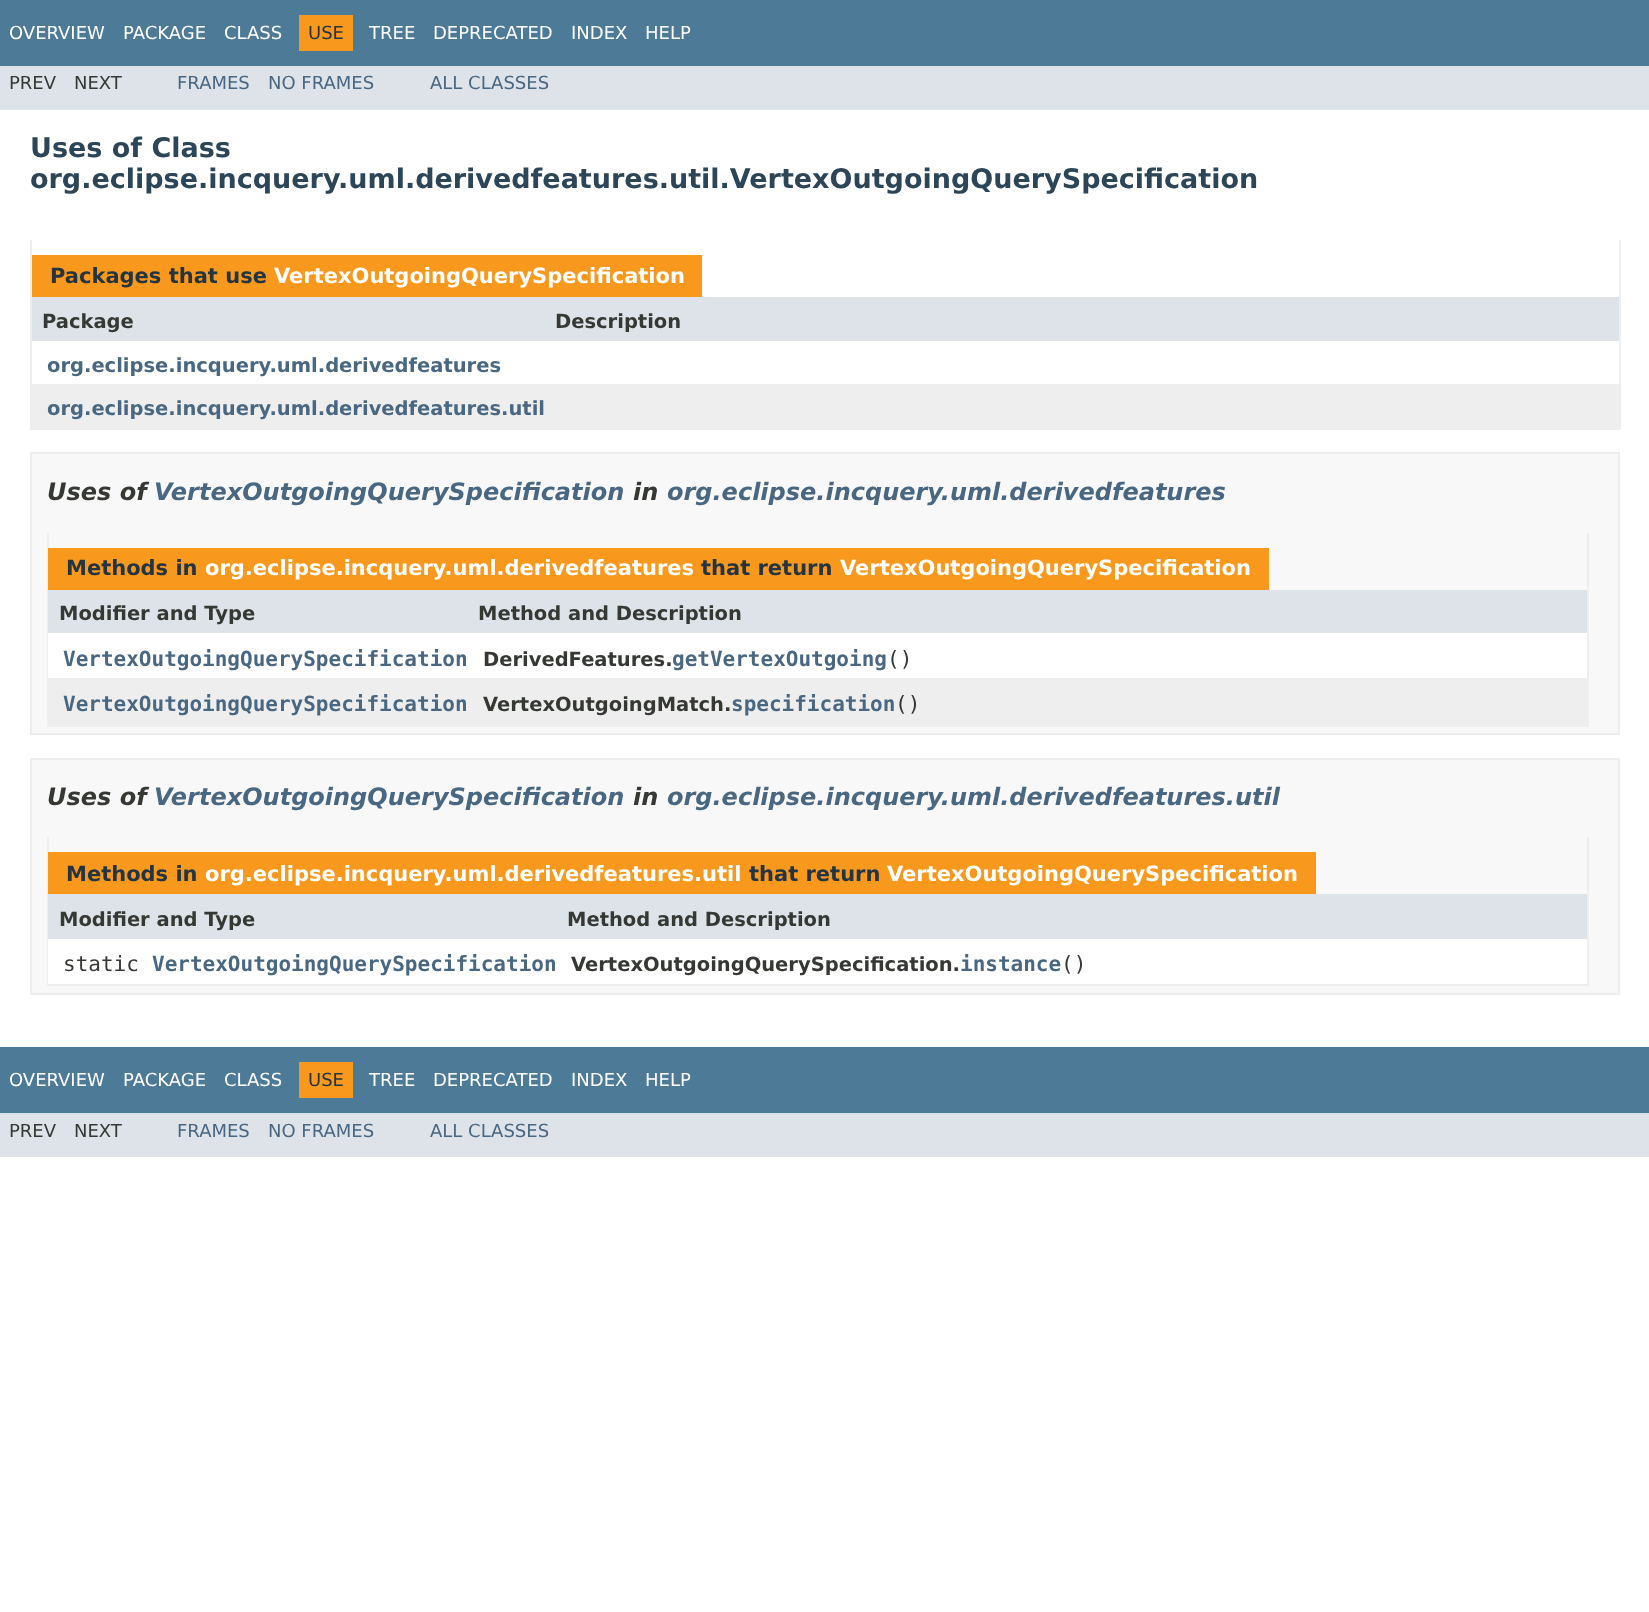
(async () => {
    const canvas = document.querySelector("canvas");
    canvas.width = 1649;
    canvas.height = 1612;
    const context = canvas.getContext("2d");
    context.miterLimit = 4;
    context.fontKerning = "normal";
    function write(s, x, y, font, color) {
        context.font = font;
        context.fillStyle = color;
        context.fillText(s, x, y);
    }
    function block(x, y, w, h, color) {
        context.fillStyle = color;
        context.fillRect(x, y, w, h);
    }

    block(0, 0, 1649, 1612, "rgb(255, 255, 255)");
    block(0, 0, 1649, 66, "rgb(77, 122, 151)");
    write("OVERVIEW", 9, 39, "18px DejaVu Sans", "rgb(255, 255, 255)");
    write("PACKAGE", 123, 39, "18px DejaVu Sans", "rgb(255, 255, 255)");
    write("CLASS", 224, 39, "18px DejaVu Sans", "rgb(255, 255, 255)");
    block(299, 15, 54, 36, "rgb(248, 152, 29)");
    write("USE", 308, 39, "18px DejaVu Sans", "rgb(37, 52, 65)");
    write("TREE", 369, 39, "18px DejaVu Sans", "rgb(255, 255, 255)");
    write("DEPRECATED", 433, 39, "18px DejaVu Sans", "rgb(255, 255, 255)");
    write("INDEX", 571, 39, "18px DejaVu Sans", "rgb(255, 255, 255)");
    write("HELP", 645, 39, "18px DejaVu Sans", "rgb(255, 255, 255)");
    block(0, 66, 1649, 44, "rgb(222, 227, 233)");
    write("PREV", 9, 89, "18px DejaVu Sans", "rgb(53, 56, 51)");
    write("NEXT", 74, 89, "18px DejaVu Sans", "rgb(53, 56, 51)");
    write("FRAMES", 177, 89, "18px DejaVu Sans", "rgb(74, 103, 130)");
    write("NO FRAMES", 268, 89, "18px DejaVu Sans", "rgb(74, 103, 130)");
    write("ALL CLASSES", 430, 89, "18px DejaVu Sans", "rgb(74, 103, 130)");
    write("Uses of Class", 30, 157, "bold 27px DejaVu Sans", "rgb(44, 69, 87)");
    write("org.eclipse.incquery.uml.derivedfeatures.util.VertexOutgoingQuerySpecification", 30, 188, "bold 27px DejaVu Sans", "rgb(44, 69, 87)");
    block(1619, 240, 2, 189, "rgb(238, 238, 238)");
    block(30, 428, 1590, 2, "rgb(238, 238, 238)");
    block(30, 240, 2, 189, "rgb(238, 238, 238)");
    block(32, 255, 670, 42, "rgb(248, 152, 29)");
    write("Packages that use", 50, 283, "bold 21px DejaVu Sans", "rgb(37, 52, 65)");
    write("VertexOutgoingQuerySpecification", 274, 283, "bold 21px DejaVu Sans", "rgb(255, 255, 255)");
    block(32, 297, 1587, 44, "rgb(222, 227, 233)");
    write("Package", 42, 328, "bold 19.5px DejaVu Sans", "rgb(53, 56, 51)");
    write("Description", 555, 328, "bold 19.5px DejaVu Sans", "rgb(53, 56, 51)");
    write("org.eclipse.incquery.uml.derivedfeatures", 47, 372, "bold 19.5px DejaVu Sans", "rgb(74, 103, 130)");
    block(32, 384, 1587, 44, "rgb(238, 238, 239)");
    write("org.eclipse.incquery.uml.derivedfeatures.util", 47, 415, "bold 19.5px DejaVu Sans", "rgb(74, 103, 130)");
    context.fillStyle = "rgb(248, 248, 248)";
    context.beginPath();
    context.rect(31, 453, 1588, 281);
    context.fill();
    context.strokeStyle = "rgb(237, 237, 237)";
    context.lineWidth = 2;
    context.stroke();
    write("Uses of", 47, 500, "italic bold 24px DejaVu Sans", "rgb(53, 56, 51)");
    write("VertexOutgoingQuerySpecification", 154, 500, "italic bold 24px DejaVu Sans", "rgb(74, 103, 130)");
    write("in", 633, 500, "italic bold 24px DejaVu Sans", "rgb(53, 56, 51)");
    write("org.eclipse.incquery.uml.derivedfeatures", 667, 500, "italic bold 24px DejaVu Sans", "rgb(74, 103, 130)");
    block(1587, 533, 2, 193, "rgb(238, 238, 238)");
    block(47, 725, 1542, 2, "rgb(238, 238, 238)");
    block(47, 533, 2, 193, "rgb(238, 238, 238)");
    block(48, 548, 1221, 42, "rgb(248, 152, 29)");
    write("Methods in", 66, 575, "bold 21px DejaVu Sans", "rgb(37, 52, 65)");
    write("org.eclipse.incquery.uml.derivedfeatures", 205, 575, "bold 21px DejaVu Sans", "rgb(255, 255, 255)");
    write("that return", 701, 575, "bold 21px DejaVu Sans", "rgb(37, 52, 65)");
    write("VertexOutgoingQuerySpecification", 840, 575, "bold 21px DejaVu Sans", "rgb(255, 255, 255)");
    block(48, 590, 1539, 43, "rgb(222, 227, 233)");
    write("Modifier and Type", 59, 620, "bold 19.5px DejaVu Sans", "rgb(53, 56, 51)");
    write("Method and Description", 478, 620, "bold 19.5px DejaVu Sans", "rgb(53, 56, 51)");
    block(48, 633, 1539, 45, "rgb(255, 255, 255)");
    write("VertexOutgoingQuerySpecification", 63, 666, "bold 21px DejaVu Sans Mono", "rgb(74, 103, 130)");
    write("DerivedFeatures.", 483, 666, "bold 19.5px DejaVu Sans", "rgb(53, 56, 51)");
    write("getVertexOutgoing", 672, 666, "bold 21px DejaVu Sans Mono", "rgb(74, 103, 130)");
    write("()", 887, 666, "21px DejaVu Sans Mono", "rgb(53, 56, 51)");
    block(49, 678, 1538, 47, "rgb(238, 238, 239)");
    write("VertexOutgoingQuerySpecification", 63, 711, "bold 21px DejaVu Sans Mono", "rgb(74, 103, 130)");
    write("VertexOutgoingMatch.", 483, 711, "bold 19.5px DejaVu Sans", "rgb(53, 56, 51)");
    write("specification", 731, 711, "bold 21px DejaVu Sans Mono", "rgb(74, 103, 130)");
    write("()", 895, 711, "21px DejaVu Sans Mono", "rgb(53, 56, 51)");
    context.fillStyle = "rgb(248, 248, 248)";
    context.beginPath();
    context.rect(31, 759, 1588, 235);
    context.fill();
    context.stroke();
    write("Uses of", 47, 805, "italic bold 24px DejaVu Sans", "rgb(53, 56, 51)");
    write("VertexOutgoingQuerySpecification", 154, 805, "italic bold 24px DejaVu Sans", "rgb(74, 103, 130)");
    write("in", 633, 805, "italic bold 24px DejaVu Sans", "rgb(53, 56, 51)");
    write("org.eclipse.incquery.uml.derivedfeatures.util", 667, 805, "italic bold 24px DejaVu Sans", "rgb(74, 103, 130)");
    block(1587, 837, 2, 149, "rgb(238, 238, 238)");
    block(47, 984, 1542, 2, "rgb(238, 238, 238)");
    block(47, 837, 2, 149, "rgb(238, 238, 238)");
    block(48, 852, 1268, 42, "rgb(248, 152, 29)");
    write("Methods in", 66, 881, "bold 21px DejaVu Sans", "rgb(37, 52, 65)");
    write("org.eclipse.incquery.uml.derivedfeatures.util", 205, 881, "bold 21px DejaVu Sans", "rgb(255, 255, 255)");
    write("that return", 749, 881, "bold 21px DejaVu Sans", "rgb(37, 52, 65)");
    write("VertexOutgoingQuerySpecification", 887, 881, "bold 21px DejaVu Sans", "rgb(255, 255, 255)");
    block(48, 894, 1539, 45, "rgb(222, 227, 233)");
    write("Modifier and Type", 59, 926, "bold 19.5px DejaVu Sans", "rgb(53, 56, 51)");
    write("Method and Description", 567, 926, "bold 19.5px DejaVu Sans", "rgb(53, 56, 51)");
    block(48, 939, 1539, 45, "rgb(255, 255, 255)");
    write("static", 63, 971, "21px DejaVu Sans Mono", "rgb(53, 56, 51)");
    write("VertexOutgoingQuerySpecification", 152, 971, "bold 21px DejaVu Sans Mono", "rgb(74, 103, 130)");
    write("VertexOutgoingQuerySpecification.", 571, 971, "bold 19.5px DejaVu Sans", "rgb(53, 56, 51)");
    write("instance", 960, 971, "bold 21px DejaVu Sans Mono", "rgb(74, 103, 130)");
    write("()", 1061, 971, "21px DejaVu Sans Mono", "rgb(53, 56, 51)");
    block(0, 1047, 1649, 66, "rgb(77, 122, 151)");
    write("OVERVIEW", 9, 1086, "18px DejaVu Sans", "rgb(255, 255, 255)");
    write("PACKAGE", 123, 1086, "18px DejaVu Sans", "rgb(255, 255, 255)");
    write("CLASS", 224, 1086, "18px DejaVu Sans", "rgb(255, 255, 255)");
    block(299, 1062, 54, 36, "rgb(248, 152, 29)");
    write("USE", 308, 1086, "18px DejaVu Sans", "rgb(37, 52, 65)");
    write("TREE", 369, 1086, "18px DejaVu Sans", "rgb(255, 255, 255)");
    write("DEPRECATED", 433, 1086, "18px DejaVu Sans", "rgb(255, 255, 255)");
    write("INDEX", 571, 1086, "18px DejaVu Sans", "rgb(255, 255, 255)");
    write("HELP", 645, 1086, "18px DejaVu Sans", "rgb(255, 255, 255)");
    block(0, 1113, 1649, 44, "rgb(222, 227, 233)");
    write("PREV", 9, 1137, "18px DejaVu Sans", "rgb(53, 56, 51)");
    write("NEXT", 74, 1137, "18px DejaVu Sans", "rgb(53, 56, 51)");
    write("FRAMES", 177, 1137, "18px DejaVu Sans", "rgb(74, 103, 130)");
    write("NO FRAMES", 268, 1137, "18px DejaVu Sans", "rgb(74, 103, 130)");
    write("ALL CLASSES", 430, 1137, "18px DejaVu Sans", "rgb(74, 103, 130)");
})();
